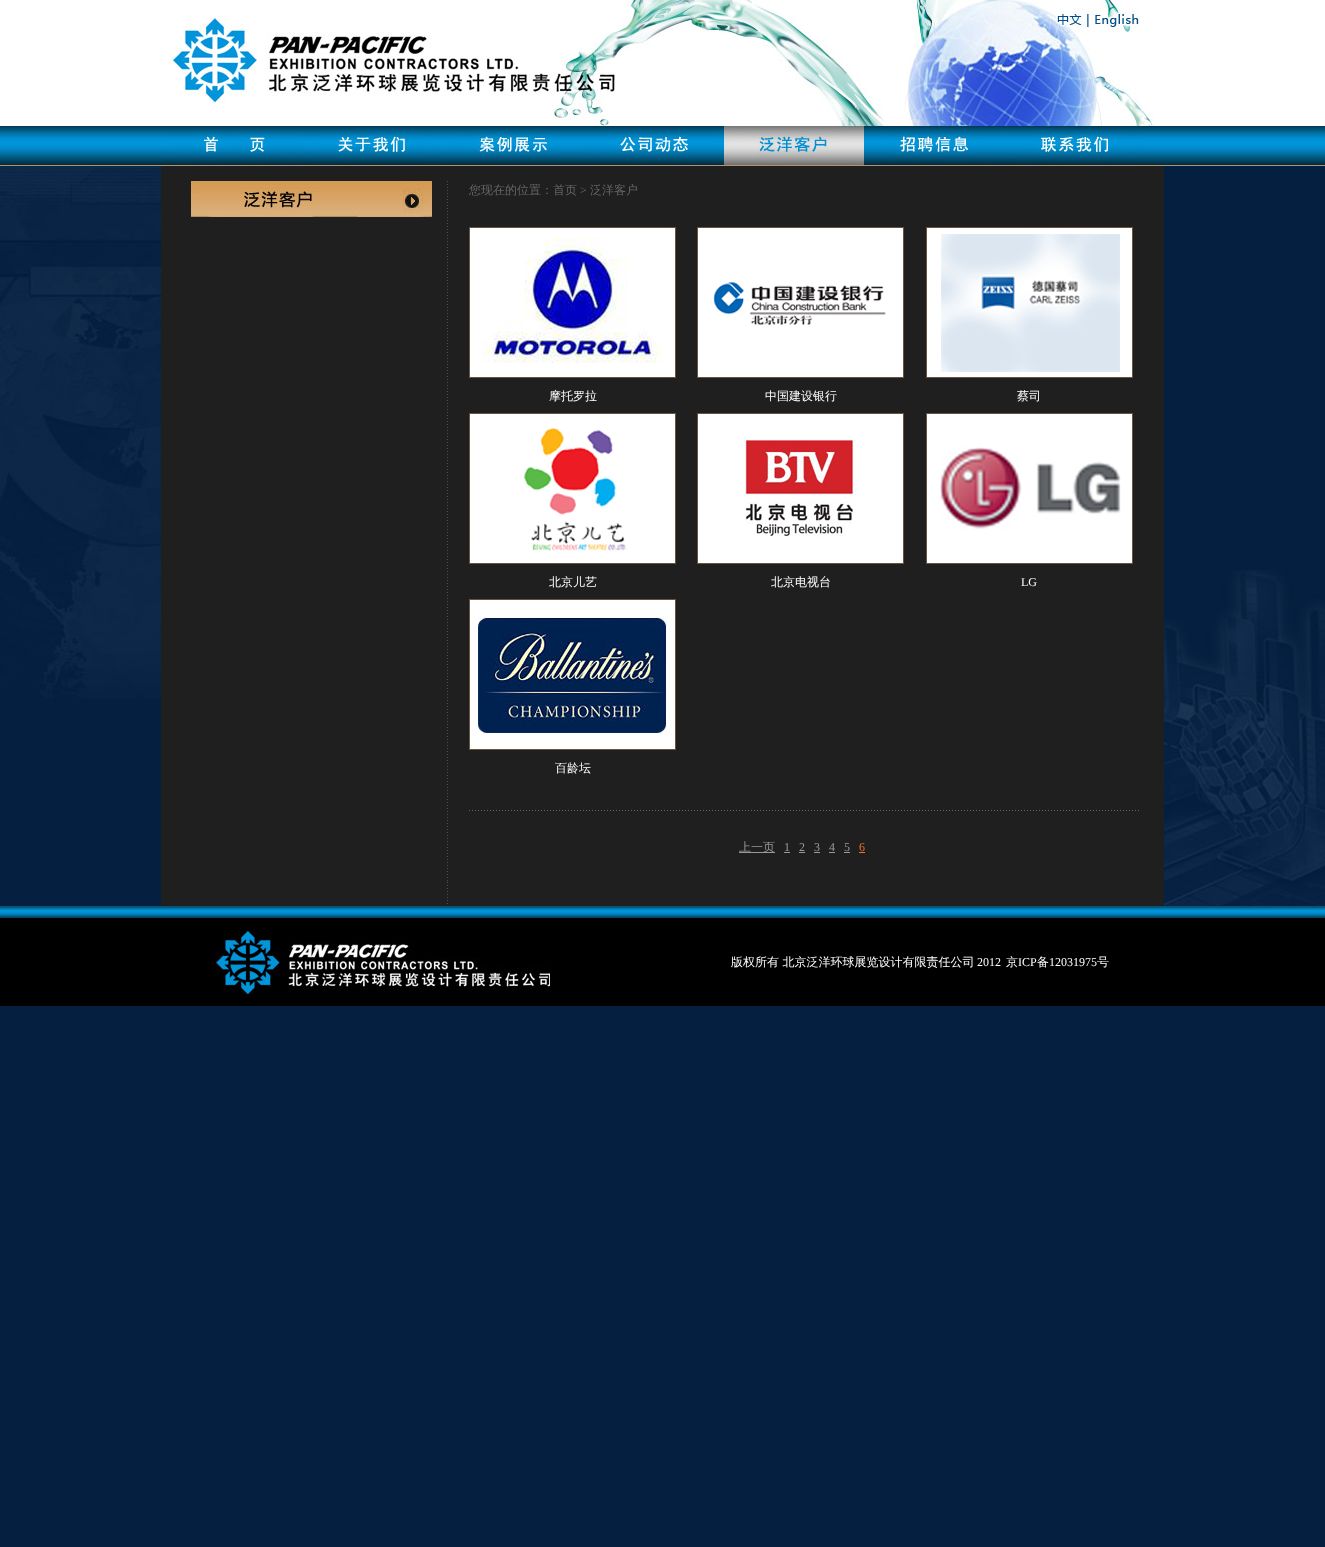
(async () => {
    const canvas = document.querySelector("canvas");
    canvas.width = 1325;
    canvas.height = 1547;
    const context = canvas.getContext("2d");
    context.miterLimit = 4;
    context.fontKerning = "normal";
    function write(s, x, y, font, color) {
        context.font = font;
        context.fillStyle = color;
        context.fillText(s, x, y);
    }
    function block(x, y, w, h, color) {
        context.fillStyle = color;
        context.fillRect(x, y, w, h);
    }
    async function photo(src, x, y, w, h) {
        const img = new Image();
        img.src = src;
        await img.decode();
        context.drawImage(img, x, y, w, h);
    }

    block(0, 0, 1325, 1547, "rgb(4, 31, 63)");
    block(0, 0, 1325, 126, "rgb(255, 255, 255)");
    await photo("media/1.png", 169, 0, 466, 126);
    await photo("media/2.png", 635, 0, 520, 126);
    await photo("media/3.png", 0, 126, 1325, 40);
    await photo("media/4.png", 164, 134, 140, 29);
    await photo("media/5.png", 304, 134, 140, 31);
    await photo("media/6.png", 444, 134, 140, 29);
    await photo("media/7.png", 584, 134, 140, 29);
    await photo("media/8.png", 724, 126, 140, 39);
    await photo("media/9.png", 864, 134, 140, 29);
    await photo("media/10.png", 1004, 134, 140, 29);
    await photo("media/11.png", 0, 166, 161, 533);
    block(161, 166, 1003, 740, "rgb(31, 31, 31)");
    await photo("media/12.png", 191, 181, 241, 36);
    await photo("media/13.png", 447, 181, 1, 700);
    write("您现在的位置：首页", 469, 194, "500 12px WenQuanYi Zen Hei", "rgb(102, 102, 102)");
    write(">", 580, 194, "12px Liberation Serif", "rgb(102, 102, 102)");
    write("泛洋客户", 590, 194, "500 12px WenQuanYi Zen Hei", "rgb(102, 102, 102)");
    await photo("media/14.png", 469, 227, 207, 151);
    write("摩托罗拉", 549, 400, "500 12px WenQuanYi Zen Hei", "rgb(255, 255, 255)");
    await photo("media/15.png", 697, 227, 207, 151);
    write("中国建设银行", 765, 400, "500 12px WenQuanYi Zen Hei", "rgb(255, 255, 255)");
    await photo("media/16.png", 926, 227, 207, 151);
    write("蔡司", 1017, 400, "500 12px WenQuanYi Zen Hei", "rgb(255, 255, 255)");
    await photo("media/17.png", 469, 413, 207, 151);
    write("北京儿艺", 549, 586, "500 12px WenQuanYi Zen Hei", "rgb(255, 255, 255)");
    await photo("media/18.png", 697, 413, 207, 151);
    write("北京电视台", 771, 586, "500 12px WenQuanYi Zen Hei", "rgb(255, 255, 255)");
    await photo("media/19.png", 926, 413, 207, 151);
    write("LG", 1021, 586, "12px Liberation Serif", "rgb(255, 255, 255)");
    await photo("media/20.png", 469, 599, 207, 151);
    write("百龄坛", 555, 772, "500 12px WenQuanYi Zen Hei", "rgb(255, 255, 255)");
    await photo("media/21.png", 469, 810, 670, 1);
    block(739, 852, 36, 1, "rgb(153, 153, 153)");
    write("上一页", 739, 851, "500 12px WenQuanYi Zen Hei", "rgb(153, 153, 153)");
    write("1", 784, 851, "12px Liberation Serif", "rgb(153, 153, 153)");
    block(784, 852, 6, 1, "rgb(153, 153, 153)");
    write("2", 799, 851, "12px Liberation Serif", "rgb(153, 153, 153)");
    block(799, 852, 6, 1, "rgb(153, 153, 153)");
    write("3", 814, 851, "12px Liberation Serif", "rgb(153, 153, 153)");
    block(814, 852, 6, 1, "rgb(153, 153, 153)");
    write("4", 829, 851, "12px Liberation Serif", "rgb(153, 153, 153)");
    block(829, 852, 6, 1, "rgb(153, 153, 153)");
    write("5", 844, 851, "12px Liberation Serif", "rgb(153, 153, 153)");
    block(844, 852, 6, 1, "rgb(153, 153, 153)");
    write("6", 859, 851, "12px Liberation Serif", "rgb(238, 109, 50)");
    block(859, 852, 6, 1, "rgb(238, 109, 50)");
    await photo("media/22.png", 447, 882, 1, 22);
    await photo("media/23.png", 1164, 570, 161, 336);
    await photo("media/24.png", 0, 906, 1325, 12);
    block(0, 918, 1325, 88, "rgb(0, 0, 0)");
    await photo("media/25.png", 215, 926, 335, 72);
    write("版权所有 北京泛洋环球展览设计有限责任公司", 731, 966, "500 12px WenQuanYi Zen Hei", "rgb(255, 255, 255)");
    write("2012", 977, 966, "12px Liberation Serif", "rgb(255, 255, 255)");
    write("京", 1006, 966, "500 12px WenQuanYi Zen Hei", "rgb(255, 255, 255)");
    write("ICP", 1018, 966, "12px Liberation Serif", "rgb(255, 255, 255)");
    write("备", 1037, 966, "500 12px WenQuanYi Zen Hei", "rgb(255, 255, 255)");
    write("12031975", 1049, 966, "12px Liberation Serif", "rgb(255, 255, 255)");
    write("号", 1097, 966, "500 12px WenQuanYi Zen Hei", "rgb(255, 255, 255)");
})();
